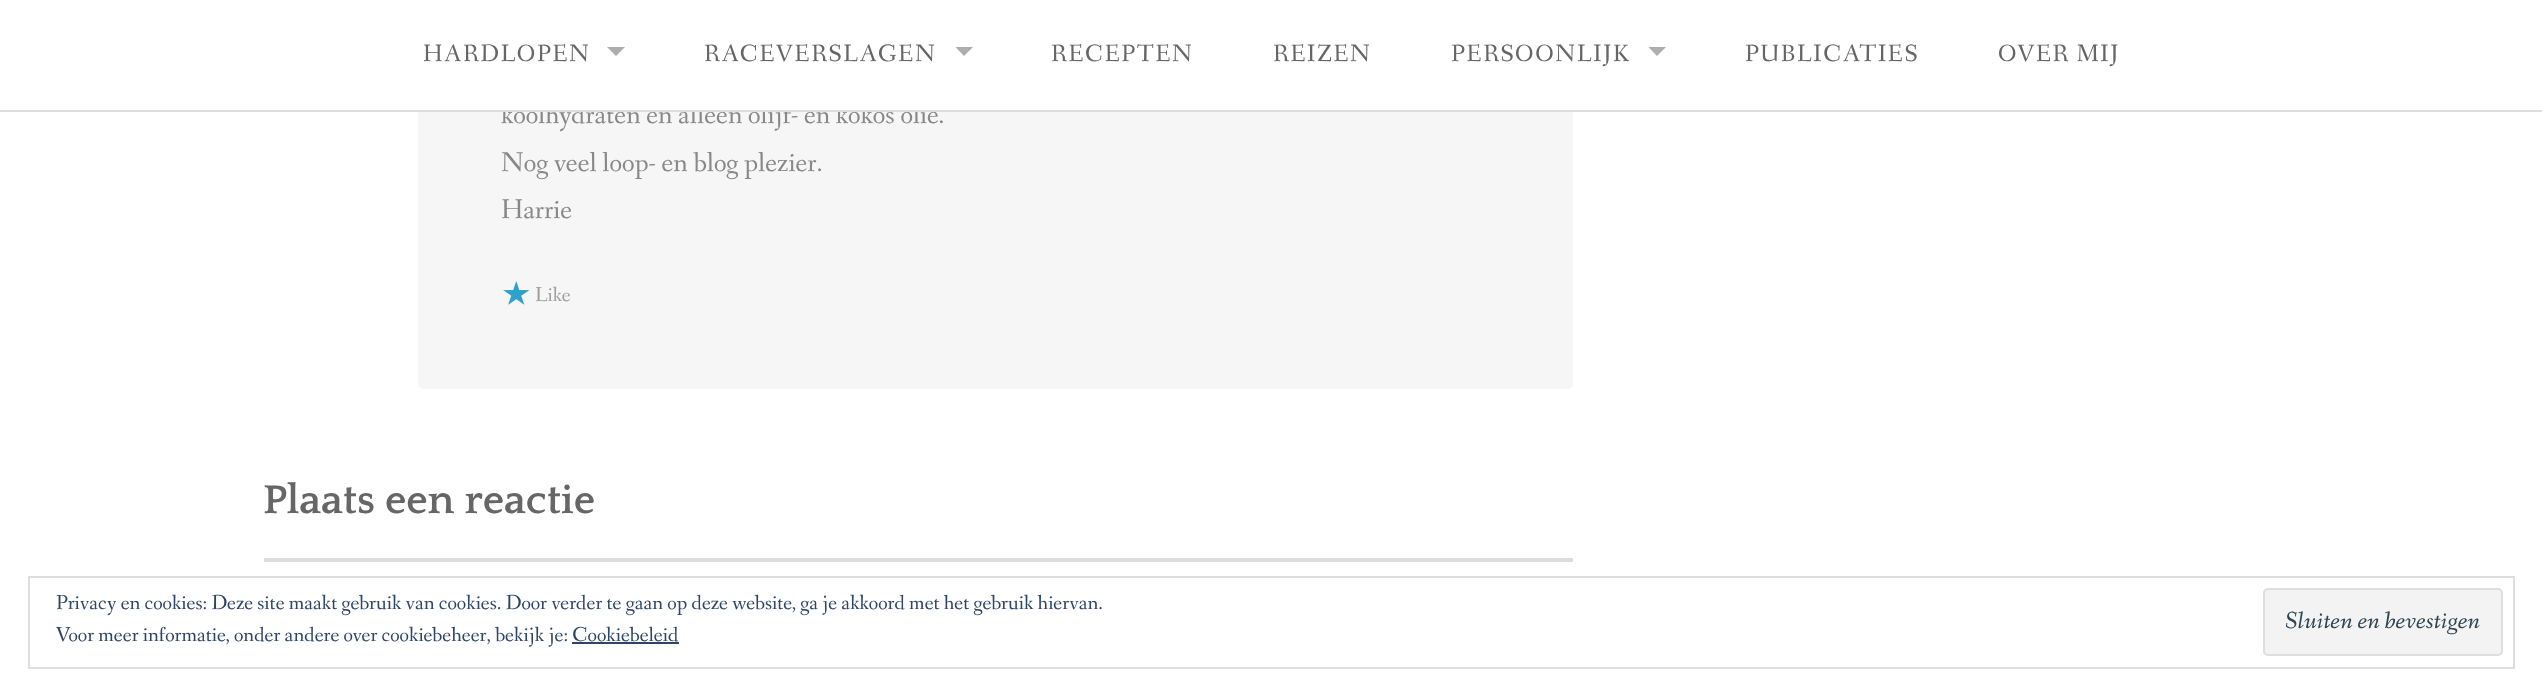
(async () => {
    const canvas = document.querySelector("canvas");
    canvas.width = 2542;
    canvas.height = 696;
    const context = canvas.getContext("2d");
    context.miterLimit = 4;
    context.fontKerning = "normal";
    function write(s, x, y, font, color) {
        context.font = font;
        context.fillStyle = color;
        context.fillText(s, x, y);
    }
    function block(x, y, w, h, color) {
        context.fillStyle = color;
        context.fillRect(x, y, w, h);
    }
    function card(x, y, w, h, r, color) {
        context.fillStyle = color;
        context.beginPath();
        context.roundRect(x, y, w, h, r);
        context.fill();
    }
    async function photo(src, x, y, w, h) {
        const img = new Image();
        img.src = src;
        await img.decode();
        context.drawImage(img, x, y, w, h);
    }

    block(0, 0, 2542, 696, "rgb(255, 255, 255)");
    card(418, -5, 1155, 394, 5, "rgb(246, 246, 246)");
    write("koolhydraten en alleen olijf- en kokos olie.", 501, 123, "28px Fanwood Text", "rgb(136, 136, 136)");
    block(418, 0, 1155, 110, "rgb(255, 255, 255)");
    block(0, 110, 2542, 2, "rgb(221, 221, 221)");
    context.letterSpacing = "1.75px";
    write("HARDLOPEN", 423, 61, "24.5px Fanwood Text", "rgb(102, 102, 102)");
    context.fillStyle = "rgb(173, 173, 173)";
    context.beginPath();
    context.moveTo(607, 47);
    context.lineTo(625, 47);
    context.lineTo(616, 56);
    context.closePath();
    context.fill();
    write("RACEVERSLAGEN", 704, 61, "24.5px Fanwood Text", "rgb(102, 102, 102)");
    context.fillStyle = "rgb(173, 173, 173)";
    context.beginPath();
    context.moveTo(955.5, 47);
    context.lineTo(973, 47);
    context.lineTo(964, 56);
    context.closePath();
    context.fill();
    write("RECEPTEN", 1051, 61, "24.5px Fanwood Text", "rgb(102, 102, 102)");
    write("REIZEN", 1273, 61, "24.5px Fanwood Text", "rgb(102, 102, 102)");
    write("PERSOONLIJK", 1451, 61, "24.5px Fanwood Text", "rgb(102, 102, 102)");
    context.fillStyle = "rgb(173, 173, 173)";
    context.beginPath();
    context.moveTo(1648.5, 47);
    context.lineTo(1666, 47);
    context.lineTo(1657, 56);
    context.closePath();
    context.fill();
    write("PUBLICATIES", 1745, 61, "24.5px Fanwood Text", "rgb(102, 102, 102)");
    write("OVER MIJ", 1998, 61, "24.5px Fanwood Text", "rgb(102, 102, 102)");
    context.letterSpacing = "0px";
    write("Nog veel loop- en blog plezier.", 501, 171, "28px Fanwood Text", "rgb(136, 136, 136)");
    write("Harrie", 501, 218, "28px Fanwood Text", "rgb(136, 136, 136)");
    await photo("media/1.png", 503, 281, 27, 24);
    write("Like", 535, 301, "21px Fanwood Text", "rgb(158, 158, 158)");
    write("Plaats een reactie", 263, 513, "bold 42px Quattrocento", "rgb(102, 102, 102)");
    block(264, 558, 1309, 4, "rgb(220, 220, 222)");
    context.strokeStyle = "rgb(222, 222, 222)";
    context.lineWidth = 2;
    context.strokeRect(29, 577, 2485, 91);
    write("Privacy en cookies: Deze site maakt gebruik van cookies. Door verder te gaan op deze website, ga je akkoord met het gebruik hiervan.", 56, 609, "21px Fanwood Text", "rgb(46, 68, 103)");
    write("Voor meer informatie, onder andere over cookiebeheer, bekijk je: Cookiebeleid", 56, 641, "21px Fanwood Text", "rgb(46, 68, 103)");
    context.fillStyle = "rgb(243, 243, 243)";
    context.beginPath();
    context.roundRect(2264, 589, 238, 66, 4);
    context.fill();
    context.stroke();
    write("Sluiten en bevestigen", 2285, 628, "italic 24.5px Fanwood Text", "rgb(46, 68, 83)");
    block(572, 642, 107, 2, "rgb(46, 68, 103)");
})();
